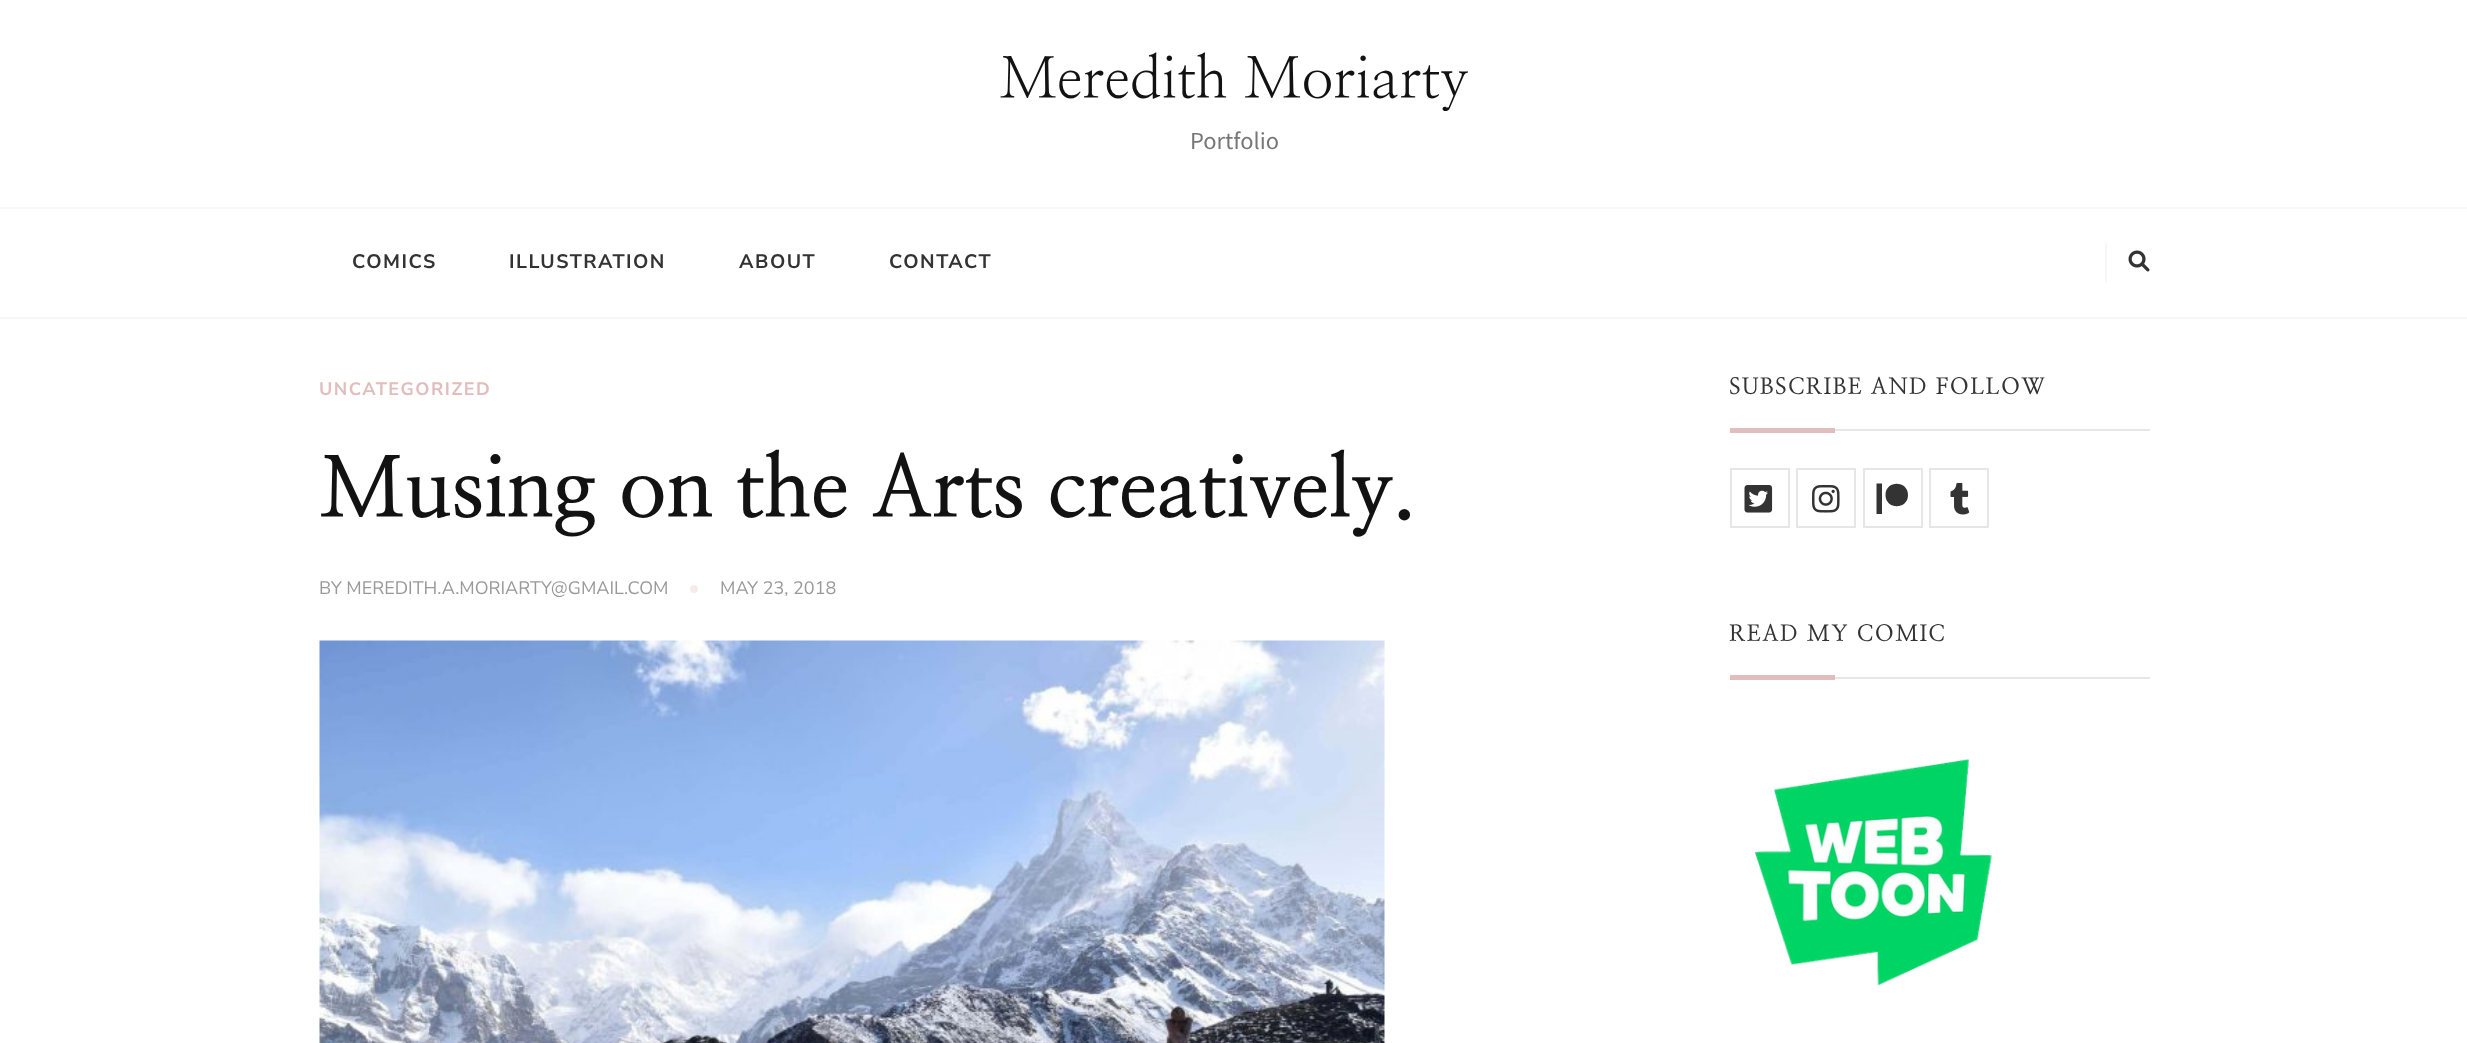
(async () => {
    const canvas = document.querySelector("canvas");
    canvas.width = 2467;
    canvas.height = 1043;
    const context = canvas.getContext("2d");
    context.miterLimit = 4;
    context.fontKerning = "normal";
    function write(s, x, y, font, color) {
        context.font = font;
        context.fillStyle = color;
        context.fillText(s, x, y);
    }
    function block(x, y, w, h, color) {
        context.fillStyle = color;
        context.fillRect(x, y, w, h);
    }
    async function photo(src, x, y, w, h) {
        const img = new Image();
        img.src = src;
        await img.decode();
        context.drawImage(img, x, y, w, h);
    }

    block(0, 0, 2467, 1043, "rgb(255, 255, 255)");
    write("Meredith Moriarty", 999, 98, "57px NanumMyeongjo", "rgb(18, 18, 18)");
    write("Portfolio", 1190, 149, "24.5px Source Sans Pro", "rgb(119, 119, 119)");
    block(0, 207, 2467, 2, "rgb(251, 245, 245)");
    block(0, 317, 2467, 2, "rgb(251, 245, 245)");
    context.letterSpacing = "1.5px";
    write("COMICS", 352, 268, "bold 19.5px Nunito Sans", "rgb(51, 51, 51)");
    write("ILLUSTRATION", 509, 268, "bold 19.5px Nunito Sans", "rgb(51, 51, 51)");
    write("ABOUT", 739, 268, "bold 19.5px Nunito Sans", "rgb(51, 51, 51)");
    write("CONTACT", 889, 268, "bold 19.5px Nunito Sans", "rgb(51, 51, 51)");
    block(2105, 243, 2, 39, "rgb(251, 245, 245)");
    await photo("media/1.png", 2128, 250, 22, 22);
    write("UNCATEGORIZED", 319, 395, "bold 18px Nunito Sans", "rgb(225, 189, 189)");
    context.letterSpacing = "0px";
    write("Musing on the Arts creatively.", 319, 517, "bold 84px NanumMyeongjo", "rgb(18, 18, 18)");
    write("BY MEREDITH.A.MORIARTY@GMAIL.COM", 319, 594, "18px Nunito Sans", "rgb(153, 153, 153)");
    context.fillStyle = "rgb(246, 235, 235)";
    context.beginPath();
    context.arc(694, 589, 4, 0, Math.PI * 2);
    context.fill();
    write("MAY 23, 2018", 720, 594, "18px Nunito Sans", "rgb(153, 153, 153)");
    await photo("media/2.png", 319, 640, 1066, 403);
    block(1835, 429, 315, 2, "rgb(230, 230, 230)");
    context.letterSpacing = "1.5px";
    write("SUBSCRIBE AND FOLLOW", 1729, 394, "bold 22.5px NanumMyeongjo", "rgb(51, 51, 51)");
    block(1730, 428, 105, 5, "rgb(225, 189, 189)");
    context.strokeStyle = "rgb(230, 230, 230)";
    context.lineWidth = 2;
    context.strokeRect(1731, 469, 58, 58);
    await photo("media/3.png", 1744, 485, 29, 28);
    context.strokeRect(1797, 469, 58, 58);
    await photo("media/4.png", 1812, 484, 28, 29);
    context.strokeRect(1864, 469, 58, 58);
    context.fillStyle = "rgb(51, 51, 51)";
    context.beginPath();
    context.moveTo(1908, 495);
    context.bezierCurveTo(1908, 510, 1885.5, 510, 1885.5, 495);
    context.bezierCurveTo(1885.5, 480, 1908, 480, 1908, 495);
    context.closePath();
    context.moveTo(1876.5, 514);
    context.lineTo(1882, 514);
    context.lineTo(1882, 483.5);
    context.lineTo(1876.5, 483.5);
    context.closePath();
    context.fill();
    context.strokeRect(1930, 469, 58, 58);
    await photo("media/5.png", 1950, 483, 20, 32);
    block(1835, 677, 315, 2, "rgb(230, 230, 230)");
    write("READ MY COMIC", 1729, 641, "bold 22.5px NanumMyeongjo", "rgb(51, 51, 51)");
    block(1730, 675, 105, 5, "rgb(225, 189, 189)");
    await photo("media/6.png", 1754, 759, 238, 227);
})();
